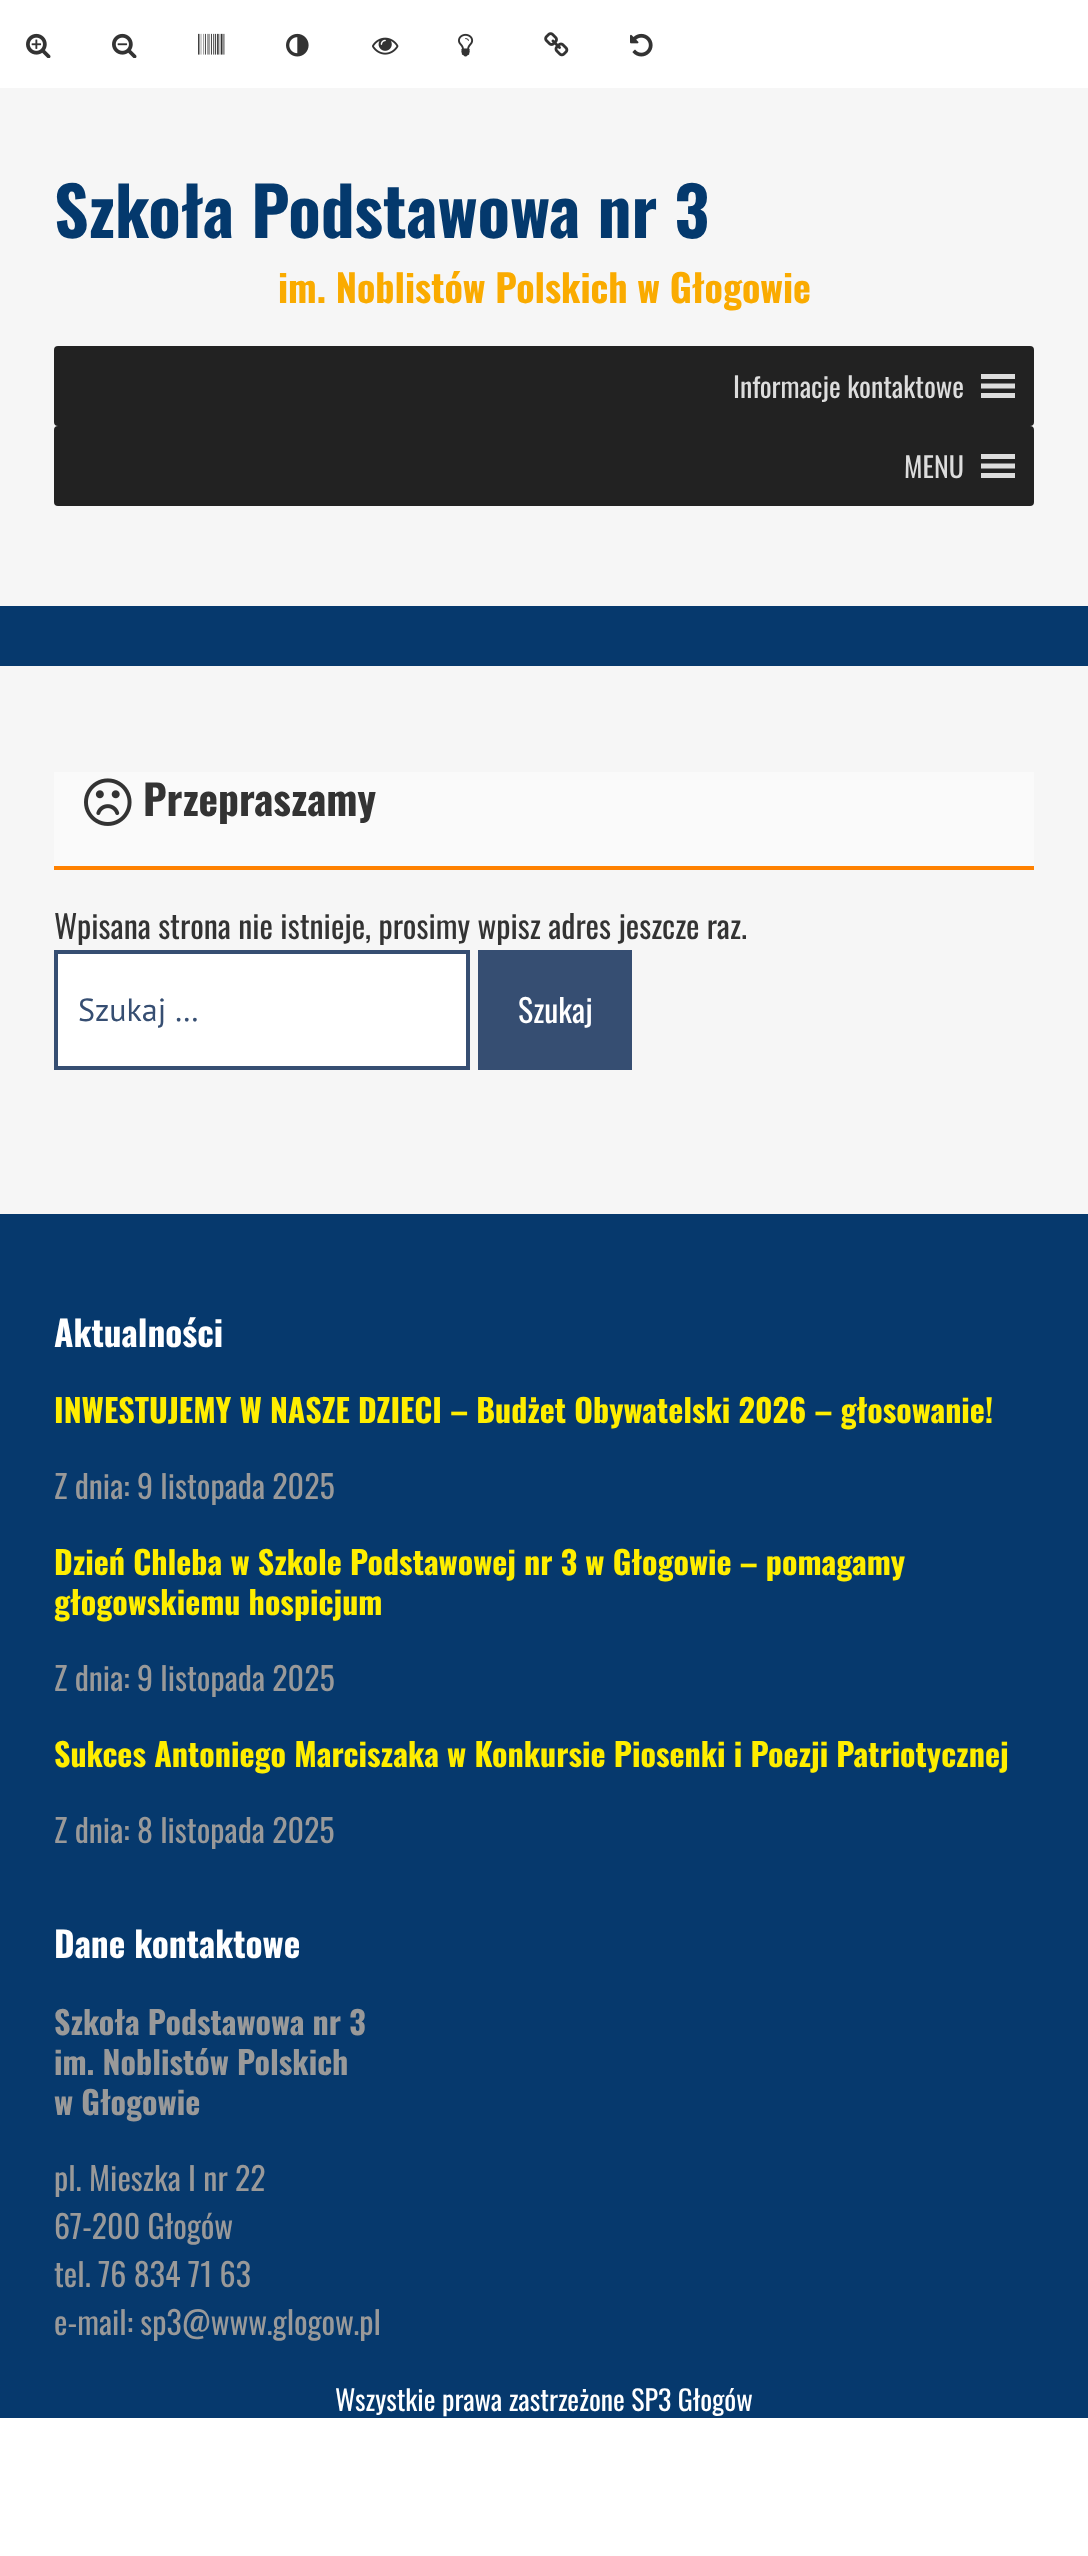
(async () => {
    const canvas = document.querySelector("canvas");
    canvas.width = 1088;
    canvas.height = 2556;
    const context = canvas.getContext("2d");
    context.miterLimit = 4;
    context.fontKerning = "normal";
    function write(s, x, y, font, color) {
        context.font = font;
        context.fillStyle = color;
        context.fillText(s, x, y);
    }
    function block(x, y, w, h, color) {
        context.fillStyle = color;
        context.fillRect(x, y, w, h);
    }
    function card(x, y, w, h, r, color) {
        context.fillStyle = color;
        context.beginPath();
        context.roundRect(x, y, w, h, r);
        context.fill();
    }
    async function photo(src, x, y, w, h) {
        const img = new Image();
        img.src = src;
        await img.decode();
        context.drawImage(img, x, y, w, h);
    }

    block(0, 0, 1088, 2556, "rgb(255, 255, 255)");
    await photo("media/1.png", 26, 33, 25, 25);
    await photo("media/2.png", 112, 33, 25, 25);
    await photo("media/3.png", 198, 33, 27, 22);
    await photo("media/4.png", 286, 33, 23, 24);
    await photo("media/5.png", 372, 37, 27, 18);
    await photo("media/6.png", 458, 33, 16, 24);
    await photo("media/7.png", 544, 32, 25, 25);
    await photo("media/8.png", 630, 33, 23, 24);
    block(0, 88, 1088, 1126, "rgb(246, 246, 246)");
    write("Szkoła Podstawowa nr 3", 54, 238, "bold 67.25px Oswald", "rgb(4, 57, 109)");
    write("im. Noblistów Polskich w Głogowie", 278, 303, "bold 38px Oswald", "rgb(250, 171, 0)");
    card(54, 346, 980, 80, 4, "rgb(34, 34, 34)");
    write("Informacje kontaktowe", 733, 398, "28px Oswald", "rgb(221, 221, 221)");
    context.beginPath();
    context.moveTo(981, 398);
    context.lineTo(1015, 398);
    context.lineTo(1015, 393);
    context.lineTo(981, 393);
    context.closePath();
    context.moveTo(981, 374);
    context.lineTo(981, 379);
    context.lineTo(1015, 379);
    context.lineTo(1015, 374);
    context.closePath();
    context.moveTo(981, 388.5);
    context.lineTo(1015, 388.5);
    context.lineTo(1015, 383.5);
    context.lineTo(981, 383.5);
    context.closePath();
    context.fill();
    card(54, 426, 980, 80, 4, "rgb(34, 34, 34)");
    write("MENU", 904, 478, "28px Oswald", "rgb(221, 221, 221)");
    context.beginPath();
    context.moveTo(981, 478);
    context.lineTo(1015, 478);
    context.lineTo(1015, 473);
    context.lineTo(981, 473);
    context.closePath();
    context.moveTo(981, 454);
    context.lineTo(981, 459);
    context.lineTo(1015, 459);
    context.lineTo(1015, 454);
    context.closePath();
    context.moveTo(981, 468.5);
    context.lineTo(1015, 468.5);
    context.lineTo(1015, 463.5);
    context.lineTo(981, 463.5);
    context.closePath();
    context.fill();
    block(0, 606, 1088, 60, "rgb(6, 57, 109)");
    block(54, 772, 980, 94, "rgb(250, 250, 250)");
    block(54, 866, 980, 4, "rgb(255, 129, 0)");
    await photo("media/9.png", 84, 778, 48, 48);
    write("Przepraszamy", 143, 816, "bold 41.5px Oswald", "rgb(51, 51, 51)");
    write("Wpisana strona nie istnieje, prosimy wpisz adres jeszcze raz.", 54, 939, "32px Oswald", "rgb(51, 51, 51)");
    context.fillStyle = "rgb(255, 255, 255)";
    context.beginPath();
    context.rect(56, 952, 412, 116);
    context.fill();
    context.strokeStyle = "rgb(54, 78, 114)";
    context.lineWidth = 4;
    context.stroke();
    write("Szukaj …", 78, 1021, "32px PT Sans", "rgb(54, 78, 114)");
    block(478, 950, 154, 120, "rgb(54, 78, 114)");
    write("Szukaj", 518, 1023, "32px Oswald", "rgb(255, 255, 255)");
    block(0, 1214, 1088, 1204, "rgb(6, 57, 109)");
    write("Aktualności", 54, 1347, "bold 35.25px Oswald", "rgb(255, 255, 255)");
    write("INWESTUJEMY W NASZE DZIECI – Budżet Obywatelski 2026 – głosowanie!", 54, 1423, "bold 32px Oswald", "rgb(255, 238, 0)");
    write("Z dnia: 9 listopada 2025", 54, 1499, "32px Oswald", "rgb(153, 153, 153)");
    write("Dzień Chleba w Szkole Podstawowej nr 3 w Głogowie – pomagamy", 54, 1575, "bold 32px Oswald", "rgb(255, 238, 0)");
    write("głogowskiemu hospicjum", 54, 1615, "bold 32px Oswald", "rgb(255, 238, 0)");
    write("Z dnia: 9 listopada 2025", 54, 1691, "32px Oswald", "rgb(153, 153, 153)");
    write("Sukces Antoniego Marciszaka w Konkursie Piosenki i Poezji Patriotycznej", 54, 1767, "bold 32px Oswald", "rgb(255, 238, 0)");
    write("Z dnia: 8 listopada 2025", 54, 1843, "32px Oswald", "rgb(153, 153, 153)");
    write("Dane kontaktowe", 54, 1958, "bold 35.25px Oswald", "rgb(255, 255, 255)");
    write("Szkoła Podstawowa nr 3", 54, 2035, "bold 32px Oswald", "rgb(153, 153, 153)");
    write("im. Noblistów Polskich", 54, 2075, "bold 32px Oswald", "rgb(153, 153, 153)");
    write("w Głogowie", 54, 2115, "bold 32px Oswald", "rgb(153, 153, 153)");
    write("pl. Mieszka I nr 22", 54, 2191, "32px Oswald", "rgb(153, 153, 153)");
    write("67-200 Głogów", 54, 2239, "32px Oswald", "rgb(153, 153, 153)");
    write("tel. 76 834 71 63", 54, 2287, "32px Oswald", "rgb(153, 153, 153)");
    write("e-mail: sp3@www.glogow.pl", 54, 2335, "32px Oswald", "rgb(153, 153, 153)");
    write("Wszystkie prawa zastrzeżone SP3 Głogów", 335, 2411, "28px Oswald", "rgb(255, 255, 255)");
})();
